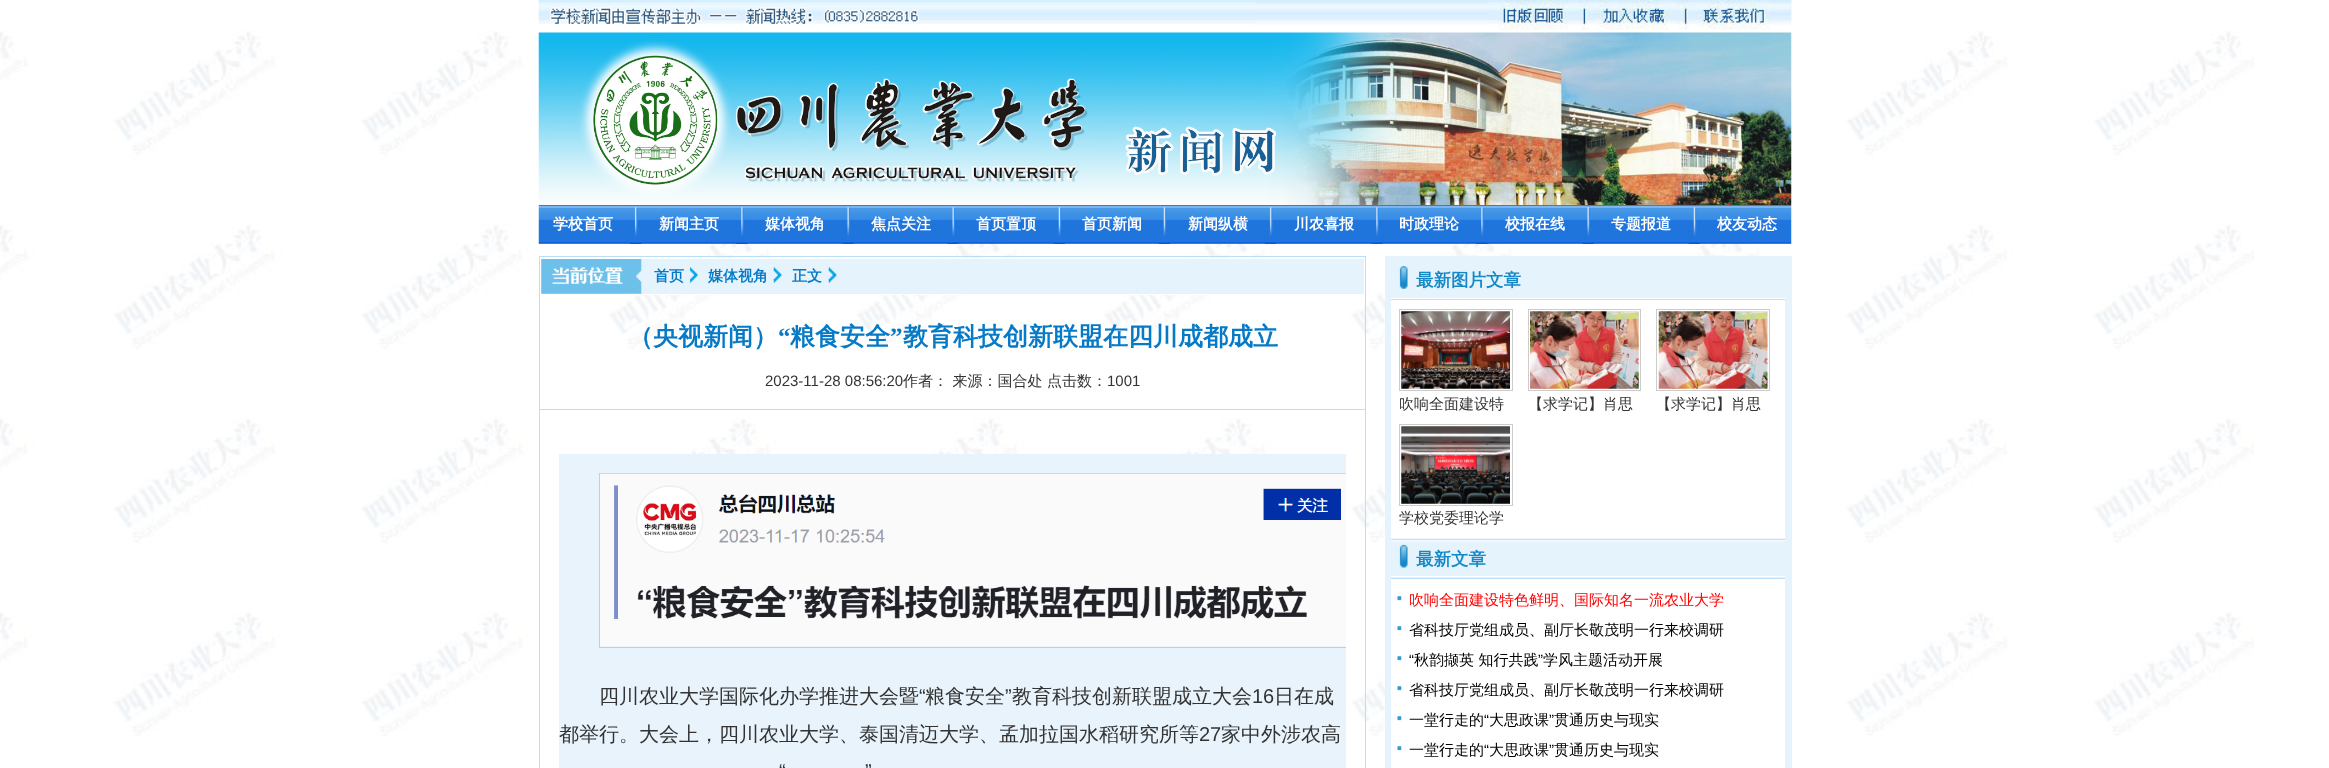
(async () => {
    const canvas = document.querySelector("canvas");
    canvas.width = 2329;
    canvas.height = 768;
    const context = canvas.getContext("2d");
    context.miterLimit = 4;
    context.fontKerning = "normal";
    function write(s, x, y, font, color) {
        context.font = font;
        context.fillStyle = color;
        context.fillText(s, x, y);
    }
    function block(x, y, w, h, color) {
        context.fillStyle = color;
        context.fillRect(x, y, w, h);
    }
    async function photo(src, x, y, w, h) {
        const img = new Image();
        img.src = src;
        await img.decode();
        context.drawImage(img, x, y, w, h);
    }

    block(0, 0, 2329, 768, "rgb(255, 255, 255)");
    await photo("media/1.png", 0, 31, 2254, 705);
    await photo("media/2.png", 538, 0, 1254, 33);
    await photo("media/3.png", 538, 0, 717, 25);
    await photo("media/4.png", 1489, 0, 85, 30);
    await photo("media/5.png", 1574, 0, 20, 30);
    await photo("media/6.png", 1594, 0, 82, 30);
    await photo("media/7.png", 1676, 0, 19, 30);
    await photo("media/8.png", 1695, 0, 75, 30);
    await photo("media/9.png", 1770, 0, 22, 26);
    await photo("media/10.png", 538, 32, 1254, 173);
    await photo("media/11.png", 538, 205, 1254, 39);
    write("学校首页", 553, 229, "bold 15px WenQuanYi Zen Hei", "rgb(255, 255, 255)");
    await photo("media/12.png", 630, 206, 12, 38);
    write("新闻主页", 659, 229, "bold 15px WenQuanYi Zen Hei", "rgb(255, 255, 255)");
    await photo("media/13.png", 736, 206, 12, 38);
    write("媒体视角", 765, 229, "bold 15px WenQuanYi Zen Hei", "rgb(255, 255, 255)");
    await photo("media/14.png", 842, 206, 12, 38);
    write("焦点关注", 871, 229, "bold 15px WenQuanYi Zen Hei", "rgb(255, 255, 255)");
    await photo("media/15.png", 947, 206, 12, 38);
    write("首页置顶", 976, 229, "bold 15px WenQuanYi Zen Hei", "rgb(255, 255, 255)");
    await photo("media/16.png", 1053, 206, 12, 38);
    write("首页新闻", 1082, 229, "bold 15px WenQuanYi Zen Hei", "rgb(255, 255, 255)");
    await photo("media/17.png", 1158, 206, 12, 38);
    write("新闻纵横", 1188, 229, "bold 15px WenQuanYi Zen Hei", "rgb(255, 255, 255)");
    await photo("media/18.png", 1265, 206, 12, 38);
    write("川农喜报", 1294, 229, "bold 15px WenQuanYi Zen Hei", "rgb(255, 255, 255)");
    await photo("media/19.png", 1371, 206, 12, 38);
    write("时政理论", 1399, 229, "bold 15px WenQuanYi Zen Hei", "rgb(255, 255, 255)");
    await photo("media/20.png", 1476, 206, 12, 38);
    write("校报在线", 1505, 229, "bold 15px WenQuanYi Zen Hei", "rgb(255, 255, 255)");
    await photo("media/21.png", 1582, 206, 12, 38);
    write("专题报道", 1611, 229, "bold 15px WenQuanYi Zen Hei", "rgb(255, 255, 255)");
    await photo("media/22.png", 1688, 206, 12, 38);
    write("校友动态", 1717, 229, "bold 15px WenQuanYi Zen Hei", "rgb(255, 255, 255)");
    block(1385, 256, 407, 512, "rgb(228, 243, 252)");
    context.strokeStyle = "rgb(185, 223, 249)";
    context.strokeRect(539.5, 256.5, 826, 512);
    block(541, 259, 823, 35, "rgb(228, 243, 252)");
    await photo("media/23.png", 541, 259, 101, 35);
    context.strokeStyle = "rgb(255, 255, 255)";
    context.strokeRect(540.5, 258.5, 824, 36);
    write("首页", 654, 281, "bold 15px WenQuanYi Zen Hei", "rgb(7, 122, 199)");
    await photo("media/24.png", 689, 267, 9, 16);
    write("媒体视角", 708, 281, "bold 15px WenQuanYi Zen Hei", "rgb(7, 122, 199)");
    await photo("media/25.png", 773, 267, 9, 16);
    write("正文", 792, 281, "bold 15px WenQuanYi Zen Hei", "rgb(7, 122, 199)");
    await photo("media/25.png", 828, 267, 9, 16);
    block(540, 409, 825, 1, "rgb(185, 223, 249)");
    write("（央视新闻）", 628, 345, "bold 25px WenQuanYi Zen Hei", "rgb(7, 122, 199)");
    write("“", 778, 345, "bold 25px Liberation Serif", "rgb(7, 122, 199)");
    write("粮食安全", 790, 345, "bold 25px WenQuanYi Zen Hei", "rgb(7, 122, 199)");
    write("”", 890, 345, "bold 25px Liberation Serif", "rgb(7, 122, 199)");
    write("教育科技创新联盟在四川成都成立", 903, 345, "bold 25px WenQuanYi Zen Hei", "rgb(7, 122, 199)");
    write("2023-11-28 08:56:20", 765, 386, "15px Liberation Sans", "rgb(51, 51, 51)");
    write("作者： 来源：国合处 点击数：", 903, 386, "500 15px WenQuanYi Zen Hei", "rgb(51, 51, 51)");
    write("1001", 1107, 386, "15px Liberation Sans", "rgb(51, 51, 51)");
    block(559, 454, 787, 314, "rgb(232, 243, 251)");
    context.save();
    context.beginPath();
    context.rect(559, 454, 787, 194);
    context.clip();
    context.strokeStyle = "rgb(204, 204, 204)";
    context.strokeRect(599.5, 473.5, 751, 174);
    context.restore();
    await photo("media/26.png", 600, 473, 746, 174);
    write("四川农业大学国际化办学推进大会暨", 599, 703, "500 20px WenQuanYi Zen Hei", "rgb(51, 51, 51)");
    write("“", 919, 703, "20px Liberation Sans", "rgb(51, 51, 51)");
    write("粮食安全", 925, 703, "500 20px WenQuanYi Zen Hei", "rgb(51, 51, 51)");
    write("”", 1005, 703, "20px Liberation Sans", "rgb(51, 51, 51)");
    write("教育科技创新联盟成立大会", 1012, 703, "500 20px WenQuanYi Zen Hei", "rgb(51, 51, 51)");
    write("16", 1252, 703, "20px Liberation Sans", "rgb(51, 51, 51)");
    write("日在成", 1274, 703, "500 20px WenQuanYi Zen Hei", "rgb(51, 51, 51)");
    write("都举行。大会上，四川农业大学、泰国清迈大学、孟加拉国水稻研究所等", 559, 741, "500 20px WenQuanYi Zen Hei", "rgb(51, 51, 51)");
    write("27", 1199, 741, "20px Liberation Sans", "rgb(51, 51, 51)");
    write("家中外涉农高", 1221, 741, "500 20px WenQuanYi Zen Hei", "rgb(51, 51, 51)");
    write("“", 779, 778, "20px Liberation Sans", "rgb(51, 51, 51)");
    write("”", 865, 778, "20px Liberation Sans", "rgb(51, 51, 51)");
    await photo("media/27.png", 1399, 266, 9, 23);
    block(1391, 298, 394, 1, "rgb(255, 255, 255)");
    write("最新图片文章", 1416, 286, "bold 17.5px WenQuanYi Zen Hei", "rgb(21, 137, 200)");
    block(1391, 300, 394, 241, "rgb(255, 255, 255)");
    await photo("media/28.png", 1391, 538, 394, 4);
    block(1391, 299, 394, 1, "rgb(185, 223, 249)");
    context.strokeStyle = "rgb(204, 204, 204)";
    context.strokeRect(1399.5, 309.5, 113, 81);
    await photo("media/29.png", 1401, 311, 109, 78);
    write("吹响全面建设特", 1399, 409, "500 15px WenQuanYi Zen Hei", "rgb(51, 51, 51)");
    context.strokeRect(1528.5, 309.5, 112, 81);
    await photo("media/30.png", 1530, 311, 109, 78);
    write("【求学记】肖思", 1528, 409, "500 15px WenQuanYi Zen Hei", "rgb(51, 51, 51)");
    context.strokeRect(1656.5, 309.5, 113, 81);
    await photo("media/31.png", 1658, 311, 110, 78);
    write("【求学记】肖思", 1656, 409, "500 15px WenQuanYi Zen Hei", "rgb(51, 51, 51)");
    context.strokeRect(1399.5, 424.5, 113, 81);
    await photo("media/32.png", 1401, 426, 109, 78);
    write("学校党委理论学", 1399, 523, "500 15px WenQuanYi Zen Hei", "rgb(51, 51, 51)");
    await photo("media/33.png", 1399, 544, 9, 24);
    block(1391, 576, 394, 1, "rgb(255, 255, 255)");
    write("最新文章", 1416, 565, "bold 17.5px WenQuanYi Zen Hei", "rgb(21, 137, 200)");
    block(1391, 579, 394, 189, "rgb(255, 255, 255)");
    block(1391, 578, 394, 1, "rgb(185, 223, 249)");
    await photo("media/34.png", 1397, 596, 5, 5);
    write("吹响全面建设特色鲜明、国际知名一流农业大学", 1409, 605, "500 15px WenQuanYi Zen Hei", "rgb(255, 0, 0)");
    await photo("media/34.png", 1397, 626, 5, 5);
    write("省科技厅党组成员、副厅长敬茂明一行来校调研", 1409, 635, "500 15px WenQuanYi Zen Hei", "rgb(0, 0, 0)");
    await photo("media/34.png", 1397, 656, 5, 5);
    write("“", 1409, 665, "15px Liberation Sans", "rgb(0, 0, 0)");
    write("秋韵撷英 知行共践", 1414, 665, "500 15px WenQuanYi Zen Hei", "rgb(0, 0, 0)");
    write("”", 1538, 665, "15px Liberation Sans", "rgb(0, 0, 0)");
    write("学风主题活动开展", 1543, 665, "500 15px WenQuanYi Zen Hei", "rgb(0, 0, 0)");
    await photo("media/34.png", 1397, 686, 5, 5);
    write("省科技厅党组成员、副厅长敬茂明一行来校调研", 1409, 695, "500 15px WenQuanYi Zen Hei", "rgb(0, 0, 0)");
    await photo("media/34.png", 1397, 716, 5, 5);
    write("一堂行走的", 1409, 725, "500 15px WenQuanYi Zen Hei", "rgb(0, 0, 0)");
    write("“", 1484, 725, "15px Liberation Sans", "rgb(0, 0, 0)");
    write("大思政课", 1489, 725, "500 15px WenQuanYi Zen Hei", "rgb(0, 0, 0)");
    write("”", 1549, 725, "15px Liberation Sans", "rgb(0, 0, 0)");
    write("贯通历史与现实", 1554, 725, "500 15px WenQuanYi Zen Hei", "rgb(0, 0, 0)");
    await photo("media/34.png", 1397, 746, 5, 5);
    write("一堂行走的", 1409, 755, "500 15px WenQuanYi Zen Hei", "rgb(0, 0, 0)");
    write("“", 1484, 755, "15px Liberation Sans", "rgb(0, 0, 0)");
    write("大思政课", 1489, 755, "500 15px WenQuanYi Zen Hei", "rgb(0, 0, 0)");
    write("”", 1549, 755, "15px Liberation Sans", "rgb(0, 0, 0)");
    write("贯通历史与现实", 1554, 755, "500 15px WenQuanYi Zen Hei", "rgb(0, 0, 0)");
})();
